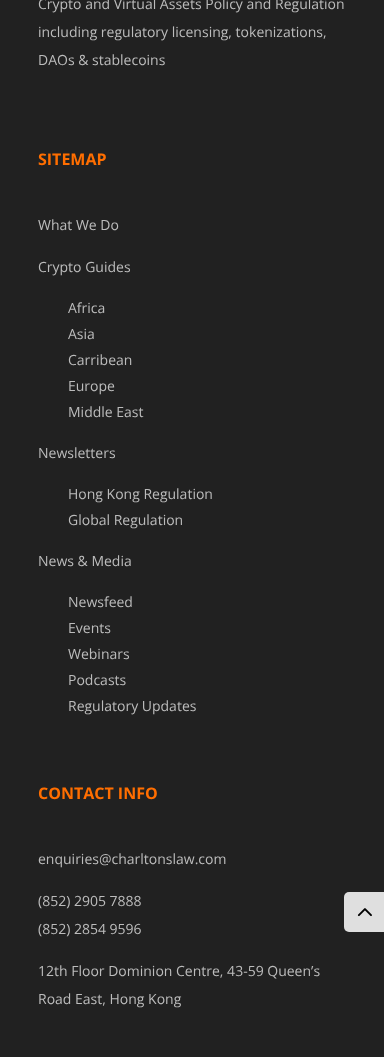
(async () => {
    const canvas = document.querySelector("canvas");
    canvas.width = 384;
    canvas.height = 1057;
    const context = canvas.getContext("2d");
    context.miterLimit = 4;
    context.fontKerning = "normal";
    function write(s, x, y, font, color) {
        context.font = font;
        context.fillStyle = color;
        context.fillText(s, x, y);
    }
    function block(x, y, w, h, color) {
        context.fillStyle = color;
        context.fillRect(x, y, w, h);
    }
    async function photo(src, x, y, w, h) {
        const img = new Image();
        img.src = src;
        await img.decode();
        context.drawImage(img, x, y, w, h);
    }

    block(0, 0, 384, 1057, "rgb(33, 33, 33)");
    write("Crypto and Virtual Assets Policy and Regulation", 38, 9, "14px Open Sans", "rgb(188, 188, 188)");
    write("including regulatory licensing, tokenizations,", 38, 37, "14px Open Sans", "rgb(188, 188, 188)");
    write("DAOs & stablecoins", 38, 65, "14px Open Sans", "rgb(188, 188, 188)");
    write("SITEMAP", 38, 165, "bold 16px Open Sans", "rgb(255, 110, 0)");
    write("What We Do", 38, 230, "14px Open Sans", "rgb(188, 188, 188)");
    write("Crypto Guides", 38, 272, "14px Open Sans", "rgb(188, 188, 188)");
    write("Africa", 68, 313, "14px Open Sans", "rgb(188, 188, 188)");
    write("Asia", 68, 339, "14px Open Sans", "rgb(188, 188, 188)");
    write("Carribean", 68, 365, "14px Open Sans", "rgb(188, 188, 188)");
    write("Europe", 68, 391, "14px Open Sans", "rgb(188, 188, 188)");
    write("Middle East", 68, 417, "14px Open Sans", "rgb(188, 188, 188)");
    write("Newsletters", 38, 458, "14px Open Sans", "rgb(188, 188, 188)");
    write("Hong Kong Regulation", 68, 499, "14px Open Sans", "rgb(188, 188, 188)");
    write("Global Regulation", 68, 525, "14px Open Sans", "rgb(188, 188, 188)");
    write("News & Media", 38, 566, "14px Open Sans", "rgb(188, 188, 188)");
    write("Newsfeed", 68, 607, "14px Open Sans", "rgb(188, 188, 188)");
    write("Events", 68, 633, "14px Open Sans", "rgb(188, 188, 188)");
    write("Webinars", 68, 659, "14px Open Sans", "rgb(188, 188, 188)");
    write("Podcasts", 68, 685, "14px Open Sans", "rgb(188, 188, 188)");
    write("Regulatory Updates", 68, 711, "14px Open Sans", "rgb(188, 188, 188)");
    write("CONTACT INFO", 38, 799, "bold 16px Open Sans", "rgb(255, 110, 0)");
    write("enquiries@charltonslaw.com", 38, 864, "14px Open Sans", "rgb(188, 188, 188)");
    write("(852) 2905 7888", 38, 906, "14px Open Sans", "rgb(188, 188, 188)");
    write("(852) 2854 9596", 38, 934, "14px Open Sans", "rgb(188, 188, 188)");
    write("12th Floor Dominion Centre, 43-59 Queen’s", 38, 976, "14px Open Sans", "rgb(188, 188, 188)");
    write("Road East, Hong Kong", 38, 1004, "14px Open Sans", "rgb(188, 188, 188)");
    context.fillStyle = "rgb(223, 223, 223)";
    context.beginPath();
    context.roundRect(344, 892, 40, 40, [5, 0, 0, 5]);
    context.fill();
    await photo("media/1.png", 357, 908, 15, 9);
})();
